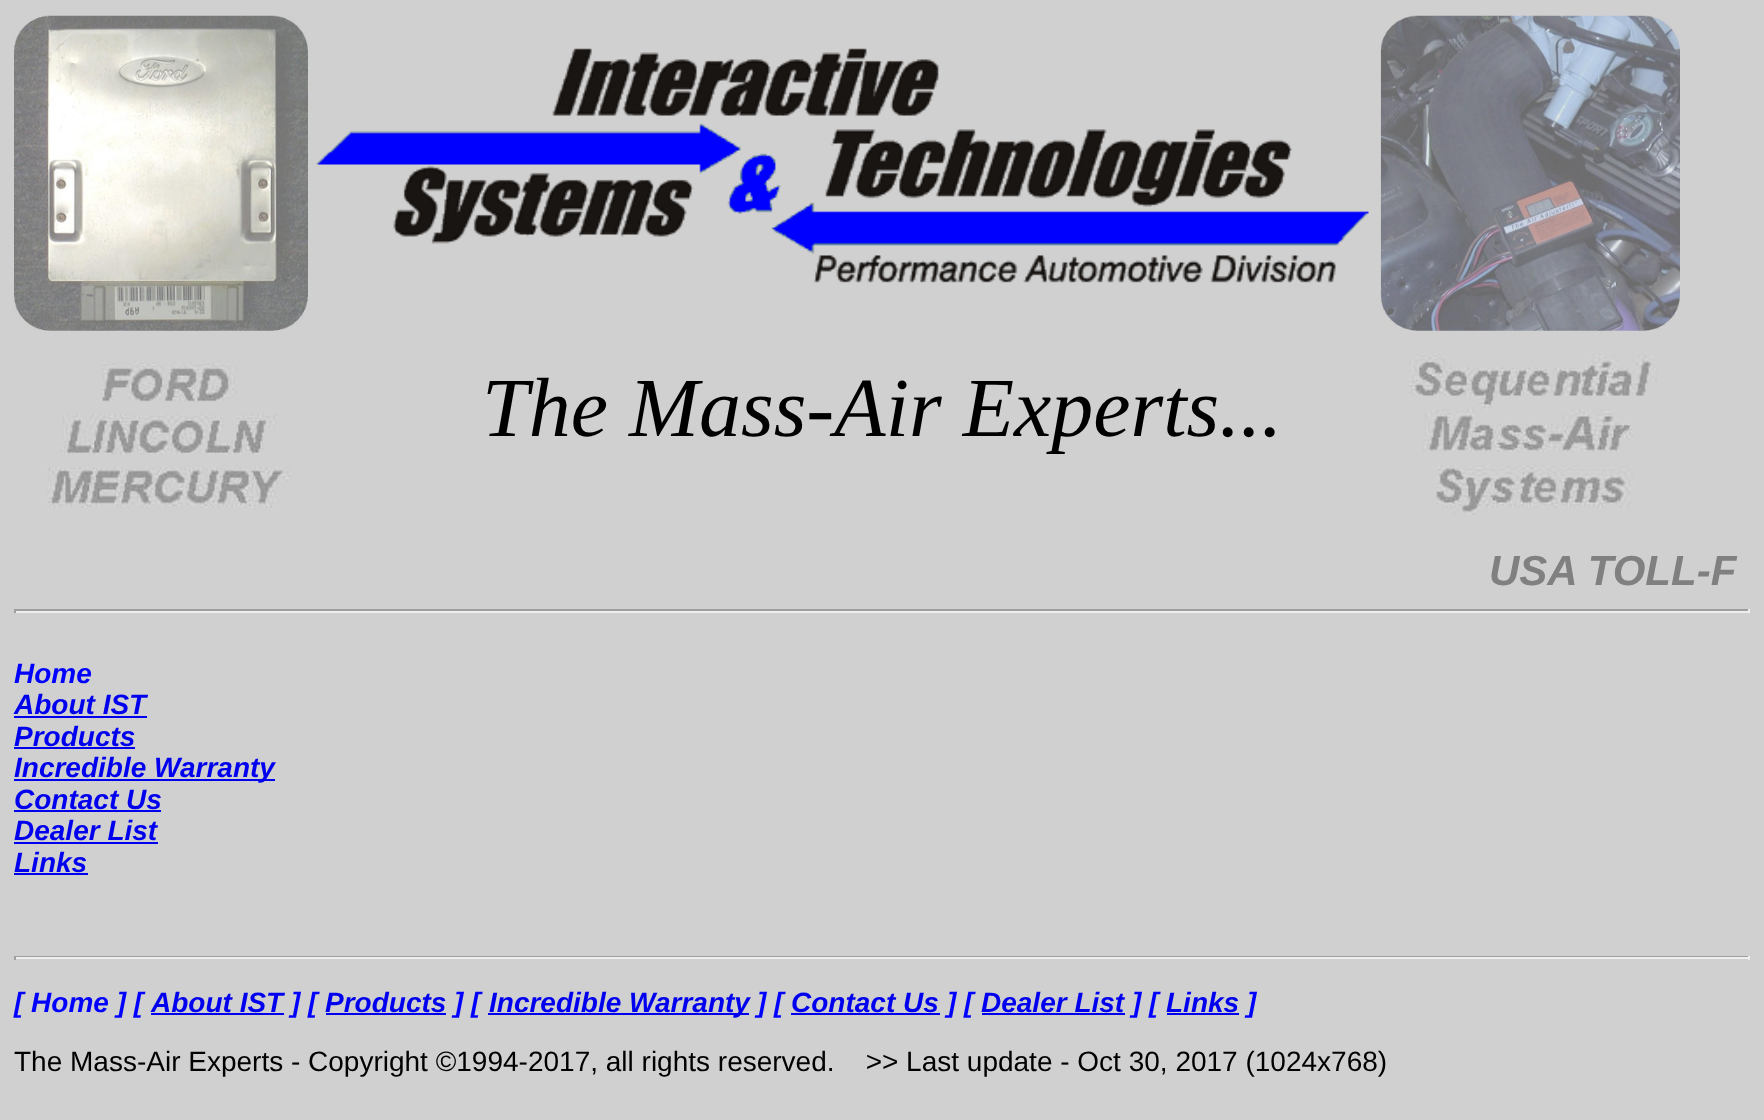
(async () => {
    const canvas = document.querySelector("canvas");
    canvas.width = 1764;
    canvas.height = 1120;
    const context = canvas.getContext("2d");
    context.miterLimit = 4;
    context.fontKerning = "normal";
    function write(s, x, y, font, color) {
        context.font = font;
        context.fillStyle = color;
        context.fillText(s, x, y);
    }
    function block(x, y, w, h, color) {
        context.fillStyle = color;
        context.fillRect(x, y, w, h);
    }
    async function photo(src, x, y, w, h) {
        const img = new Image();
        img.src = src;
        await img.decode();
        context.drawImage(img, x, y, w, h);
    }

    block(0, 0, 1764, 1120, "rgb(208, 208, 208)");
    await photo("media/1.png", 14, 15, 294, 316);
    await photo("media/3.png", 1380, 15, 300, 316);
    await photo("media/2.png", 316, 46, 1065, 255);
    await photo("media/4.png", 47, 361, 244, 147);
    write("The Mass-Air Experts...", 482, 436, "italic 84px Liberation Serif", "rgb(0, 0, 0)");
    await photo("media/5.png", 1409, 354, 248, 161);
    write("USA TOLL-F", 1489, 585, "italic bold 42px Liberation Sans", "rgb(128, 128, 128)");
    block(14, 609, 1736, 2, "rgb(159, 159, 159)");
    block(1748, 609, 2, 4, "rgb(238, 238, 238)");
    block(14, 611, 1736, 2, "rgb(238, 238, 238)");
    block(14, 609, 2, 4, "rgb(159, 159, 159)");
    write("Home", 14, 683, "italic bold 28px Liberation Sans", "rgb(0, 0, 255)");
    write("About IST", 14, 714, "italic bold 28px Liberation Sans", "rgb(0, 0, 238)");
    block(14, 716, 133, 2, "rgb(0, 0, 238)");
    write("Products", 14, 746, "italic bold 28px Liberation Sans", "rgb(0, 0, 238)");
    block(14, 747, 121, 2, "rgb(0, 0, 238)");
    block(14, 779, 261, 2, "rgb(0, 0, 238)");
    write("Incredible Warranty", 14, 777, "italic bold 28px Liberation Sans", "rgb(0, 0, 238)");
    write("Contact Us", 14, 809, "italic bold 28px Liberation Sans", "rgb(0, 0, 238)");
    block(14, 810, 147, 2, "rgb(0, 0, 238)");
    write("Dealer List", 14, 840, "italic bold 28px Liberation Sans", "rgb(0, 0, 238)");
    block(14, 842, 144, 2, "rgb(0, 0, 238)");
    write("Links", 14, 872, "italic bold 28px Liberation Sans", "rgb(0, 0, 238)");
    block(14, 873, 74, 2, "rgb(0, 0, 238)");
    block(14, 956, 1736, 1, "rgb(159, 159, 159)");
    block(1748, 956, 2, 4, "rgb(238, 238, 238)");
    block(14, 957, 1736, 2, "rgb(238, 238, 238)");
    block(14, 956, 2, 4, "rgb(159, 159, 159)");
    write("[ Home ] [", 14, 1012, "italic bold 28px Liberation Sans", "rgb(0, 0, 255)");
    write("About IST", 151, 1012, "italic bold 28px Liberation Sans", "rgb(0, 0, 238)");
    write("] [", 291, 1012, "italic bold 28px Liberation Sans", "rgb(0, 0, 255)");
    block(151, 1013, 133, 2, "rgb(0, 0, 238)");
    write("Products", 325, 1012, "italic bold 28px Liberation Sans", "rgb(0, 0, 238)");
    block(326, 1013, 120, 2, "rgb(0, 0, 238)");
    write("] [", 454, 1012, "italic bold 28px Liberation Sans", "rgb(0, 0, 255)");
    block(488, 1013, 261, 2, "rgb(0, 0, 238)");
    write("Incredible Warranty", 489, 1012, "italic bold 28px Liberation Sans", "rgb(0, 0, 238)");
    write("] [", 757, 1012, "italic bold 28px Liberation Sans", "rgb(0, 0, 255)");
    block(791, 1013, 149, 2, "rgb(0, 0, 238)");
    write("Contact Us", 791, 1012, "italic bold 28px Liberation Sans", "rgb(0, 0, 238)");
    write("] [", 947, 1012, "italic bold 28px Liberation Sans", "rgb(0, 0, 255)");
    write("Dealer List", 981, 1012, "italic bold 28px Liberation Sans", "rgb(0, 0, 238)");
    write("] [", 1132, 1012, "italic bold 28px Liberation Sans", "rgb(0, 0, 255)");
    block(982, 1013, 143, 2, "rgb(0, 0, 238)");
    block(1167, 1013, 72, 2, "rgb(0, 0, 238)");
    write("Links", 1166, 1012, "italic bold 28px Liberation Sans", "rgb(0, 0, 238)");
    write("]", 1247, 1012, "italic bold 28px Liberation Sans", "rgb(0, 0, 255)");
    write("The Mass-Air Experts - Copyright ©1994-2017, all rights reserved.    >> Last update - Oct 30, 2017 (1024x768)", 14, 1071, "28px Liberation Sans", "rgb(0, 0, 0)");
})();
